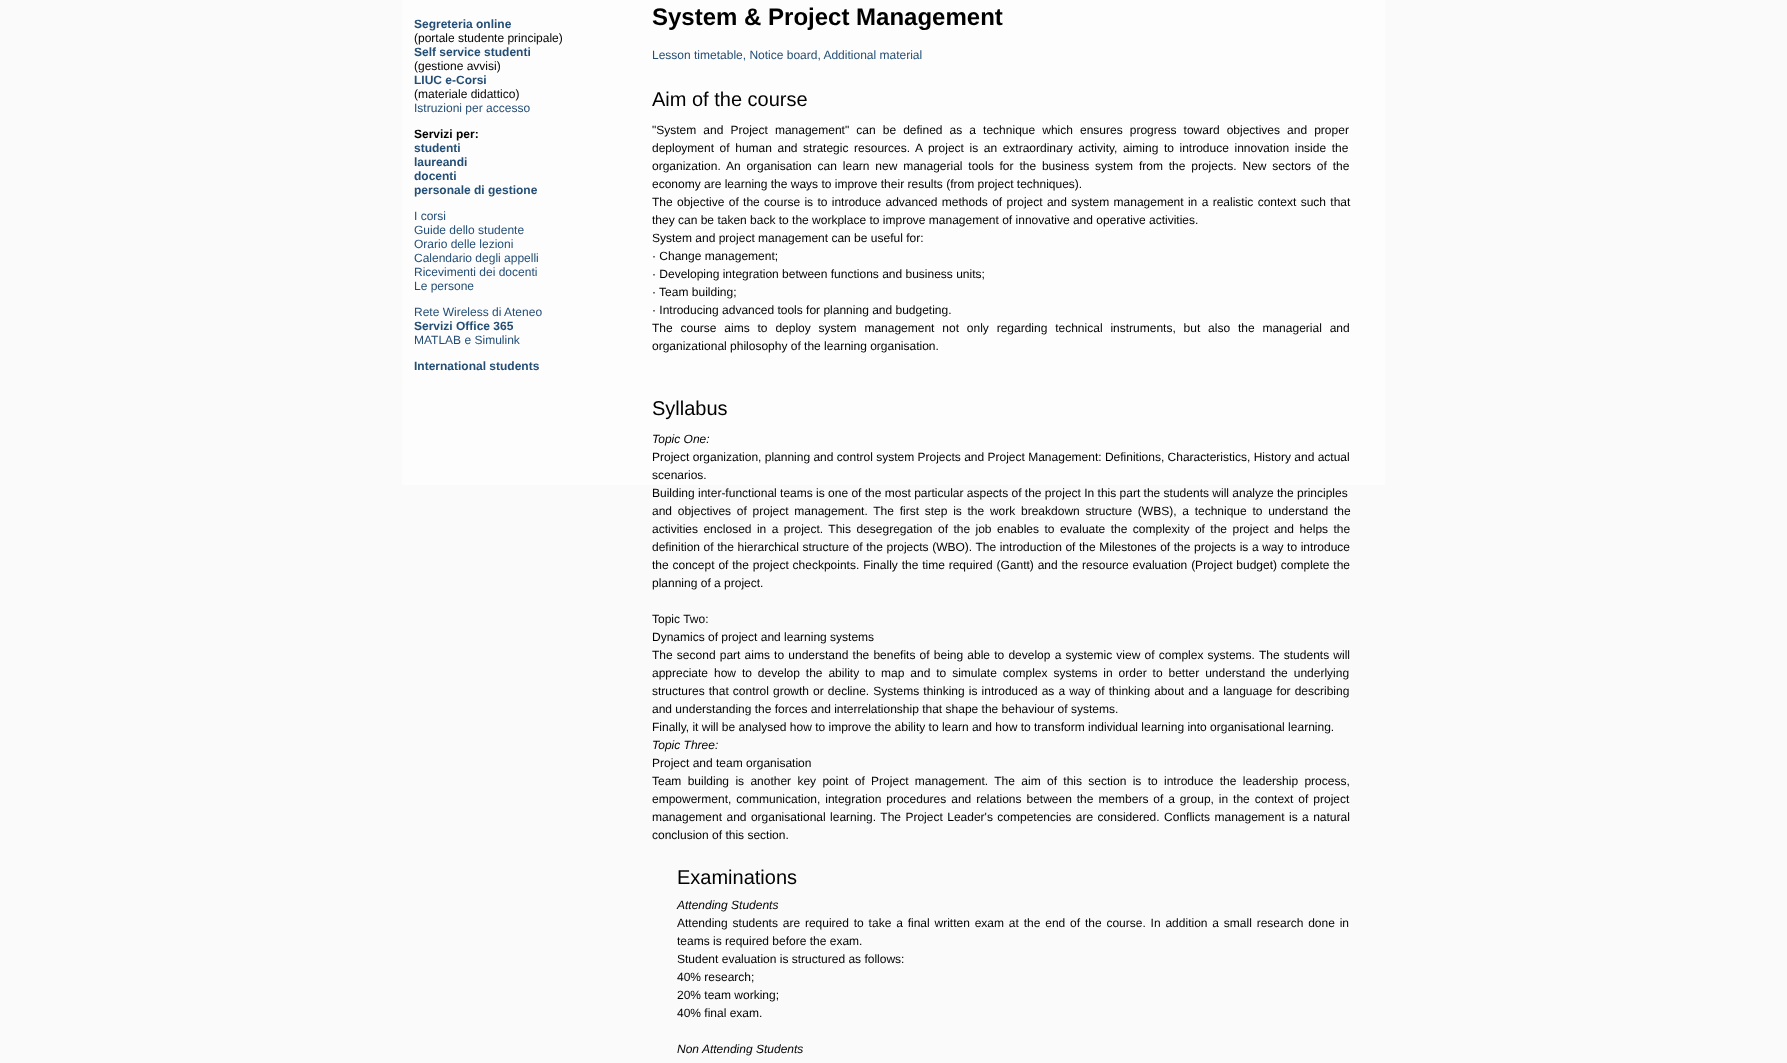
(async () => {
    const canvas = document.querySelector("canvas");
    canvas.width = 1787;
    canvas.height = 1063;
    const context = canvas.getContext("2d");
    context.miterLimit = 4;
    context.fontKerning = "normal";
    function write(s, x, y, font, color) {
        context.font = font;
        context.fillStyle = color;
        context.fillText(s, x, y);
    }
    function block(x, y, w, h, color) {
        context.fillStyle = color;
        context.fillRect(x, y, w, h);
    }

    block(0, 0, 1787, 1063, "rgb(250, 250, 250)");
    block(402, 0, 983, 485, "rgb(253, 253, 253)");
    write("Segreteria online", 414, 28, "bold 12px Liberation Sans", "rgb(37, 78, 117)");
    write("(portale studente principale)", 414, 42, "12px Liberation Sans", "rgb(0, 0, 0)");
    write("Self service studenti", 414, 56, "bold 12px Liberation Sans", "rgb(37, 78, 117)");
    write("(gestione avvisi)", 414, 70, "12px Liberation Sans", "rgb(0, 0, 0)");
    write("LIUC e-Corsi", 414, 84, "bold 12px Liberation Sans", "rgb(37, 78, 117)");
    write("(materiale didattico)", 414, 98, "12px Liberation Sans", "rgb(0, 0, 0)");
    write("Istruzioni per accesso", 414, 112, "12px Liberation Sans", "rgb(37, 78, 117)");
    write("Servizi per:", 414, 138, "bold 12px Liberation Sans", "rgb(0, 0, 0)");
    write("studenti", 414, 152, "bold 12px Liberation Sans", "rgb(37, 78, 117)");
    write("laureandi", 414, 166, "bold 12px Liberation Sans", "rgb(37, 78, 117)");
    write("docenti", 414, 180, "bold 12px Liberation Sans", "rgb(37, 78, 117)");
    write("personale di gestione", 414, 194, "bold 12px Liberation Sans", "rgb(37, 78, 117)");
    write("I corsi", 414, 220, "12px Liberation Sans", "rgb(37, 78, 117)");
    write("Guide dello studente", 414, 234, "12px Liberation Sans", "rgb(37, 78, 117)");
    write("Orario delle lezioni", 414, 248, "12px Liberation Sans", "rgb(37, 78, 117)");
    write("Calendario degli appelli", 414, 262, "12px Liberation Sans", "rgb(37, 78, 117)");
    write("Ricevimenti dei docenti", 414, 276, "12px Liberation Sans", "rgb(37, 78, 117)");
    write("Le persone", 414, 290, "12px Liberation Sans", "rgb(37, 78, 117)");
    write("Rete Wireless di Ateneo", 414, 316, "12px Liberation Sans", "rgb(37, 78, 117)");
    write("Servizi Office 365", 414, 330, "bold 12px Liberation Sans", "rgb(37, 78, 117)");
    write("MATLAB e Simulink", 414, 344, "12px Liberation Sans", "rgb(37, 78, 117)");
    write("International students", 414, 370, "bold 12px Liberation Sans", "rgb(37, 78, 117)");
    write("System & Project Management", 652, 25, "bold 24px Liberation Sans", "rgb(0, 0, 0)");
    write("Lesson timetable, Notice board, Additional material", 652, 59, "12px Liberation Sans", "rgb(37, 78, 117)");
    write("Aim of the course", 652, 106, "20px Liberation Sans", "rgb(0, 0, 0)");
    context.wordSpacing = "3.75px";
    write("\"System and Project management\" can be defined as a technique which ensures progress toward objectives and proper", 652, 134, "12px Liberation Sans", "rgb(0, 0, 0)");
    context.wordSpacing = "2.25px";
    write("deployment of human and strategic resources. A project is an extraordinary activity, aiming to introduce innovation inside the", 652, 152, "12px Liberation Sans", "rgb(0, 0, 0)");
    context.wordSpacing = "2.5px";
    write("organization. An organisation can learn new managerial tools for the business system from the projects. New sectors of the", 652, 170, "12px Liberation Sans", "rgb(0, 0, 0)");
    context.wordSpacing = "0px";
    write("economy are learning the ways to improve their results (from project techniques).", 652, 188, "12px Liberation Sans", "rgb(0, 0, 0)");
    context.wordSpacing = "1px";
    write("The objective of the course is to introduce advanced methods of project and system management in a realistic context such that", 652, 206, "12px Liberation Sans", "rgb(0, 0, 0)");
    context.wordSpacing = "0px";
    write("they can be taken back to the workplace to improve management of innovative and operative activities.", 652, 224, "12px Liberation Sans", "rgb(0, 0, 0)");
    write("System and project management can be useful for:", 652, 242, "12px Liberation Sans", "rgb(0, 0, 0)");
    write("· Change management;", 652, 260, "12px Liberation Sans", "rgb(0, 0, 0)");
    write("· Developing integration between functions and business units;", 652, 278, "12px Liberation Sans", "rgb(0, 0, 0)");
    write("· Team building;", 652, 296, "12px Liberation Sans", "rgb(0, 0, 0)");
    write("· Introducing advanced tools for planning and budgeting.", 652, 314, "12px Liberation Sans", "rgb(0, 0, 0)");
    context.wordSpacing = "4.5px";
    write("The course aims to deploy system management not only regarding technical instruments, but also the managerial and", 652, 332, "12px Liberation Sans", "rgb(0, 0, 0)");
    context.wordSpacing = "0px";
    write("organizational philosophy of the learning organisation.", 652, 350, "12px Liberation Sans", "rgb(0, 0, 0)");
    write("Syllabus", 652, 415, "20px Liberation Sans", "rgb(0, 0, 0)");
    write("Topic One:", 652, 443, "italic 12px Liberation Sans", "rgb(0, 0, 0)");
    write("Project organization, planning and control system Projects and Project Management: Definitions, Characteristics, History and actual", 652, 461, "12px Liberation Sans", "rgb(0, 0, 0)");
    write("scenarios.", 652, 479, "12px Liberation Sans", "rgb(0, 0, 0)");
    write("Building inter-functional teams is one of the most particular aspects of the project In this part the students will analyze the principles", 652, 497, "12px Liberation Sans", "rgb(0, 0, 0)");
    context.wordSpacing = "2.4px";
    write("and objectives of project management. The first step is the work breakdown structure (WBS), a technique to understand the", 652, 515, "12px Liberation Sans", "rgb(0, 0, 0)");
    context.wordSpacing = "2.1px";
    write("activities enclosed in a project. This desegregation of the job enables to evaluate the complexity of the project and helps the", 652, 533, "12px Liberation Sans", "rgb(0, 0, 0)");
    context.wordSpacing = "0.25px";
    write("definition of the hierarchical structure of the projects (WBO). The introduction of the Milestones of the projects is a way to introduce", 652, 551, "12px Liberation Sans", "rgb(0, 0, 0)");
    context.wordSpacing = "0.5px";
    write("the concept of the project checkpoints. Finally the time required (Gantt) and the resource evaluation (Project budget) complete the", 652, 569, "12px Liberation Sans", "rgb(0, 0, 0)");
    context.wordSpacing = "0px";
    write("planning of a project.", 652, 587, "12px Liberation Sans", "rgb(0, 0, 0)");
    write("Topic Two:", 652, 623, "12px Liberation Sans", "rgb(0, 0, 0)");
    write("Dynamics of project and learning systems", 652, 641, "12px Liberation Sans", "rgb(0, 0, 0)");
    context.wordSpacing = "0.85px";
    write("The second part aims to understand the benefits of being able to develop a systemic view of complex systems. The students will", 652, 659, "12px Liberation Sans", "rgb(0, 0, 0)");
    context.wordSpacing = "2.6px";
    write("appreciate how to develop the ability to map and to simulate complex systems in order to better understand the underlying", 652, 677, "12px Liberation Sans", "rgb(0, 0, 0)");
    context.wordSpacing = "0.75px";
    write("structures that control growth or decline. Systems thinking is introduced as a way of thinking about and a language for describing", 652, 695, "12px Liberation Sans", "rgb(0, 0, 0)");
    context.wordSpacing = "0px";
    write("and understanding the forces and interrelationship that shape the behaviour of systems.", 652, 713, "12px Liberation Sans", "rgb(0, 0, 0)");
    write("Finally, it will be analysed how to improve the ability to learn and how to transform individual learning into organisational learning.", 652, 731, "12px Liberation Sans", "rgb(0, 0, 0)");
    write("Topic Three:", 652, 749, "italic 12px Liberation Sans", "rgb(0, 0, 0)");
    write("Project and team organisation", 652, 767, "12px Liberation Sans", "rgb(0, 0, 0)");
    context.wordSpacing = "3px";
    write("Team building is another key point of Project management. The aim of this section is to introduce the leadership process,", 652, 785, "12px Liberation Sans", "rgb(0, 0, 0)");
    context.wordSpacing = "1.6px";
    write("empowerment, communication, integration procedures and relations between the members of a group, in the context of project", 652, 803, "12px Liberation Sans", "rgb(0, 0, 0)");
    context.wordSpacing = "1.1px";
    write("management and organisational learning. The Project Leader's competencies are considered. Conflicts management is a natural", 652, 821, "12px Liberation Sans", "rgb(0, 0, 0)");
    context.wordSpacing = "0px";
    write("conclusion of this section.", 652, 839, "12px Liberation Sans", "rgb(0, 0, 0)");
    write("Examinations", 677, 884, "20px Liberation Sans", "rgb(0, 0, 0)");
    write("Attending Students", 677, 909, "italic 12px Liberation Sans", "rgb(0, 0, 0)");
    context.wordSpacing = "1.5px";
    write("Attending students are required to take a final written exam at the end of the course. In addition a small research done in", 677, 927, "12px Liberation Sans", "rgb(0, 0, 0)");
    context.wordSpacing = "0px";
    write("teams is required before the exam.", 677, 945, "12px Liberation Sans", "rgb(0, 0, 0)");
    write("Student evaluation is structured as follows:", 677, 963, "12px Liberation Sans", "rgb(0, 0, 0)");
    write("40% research;", 677, 981, "12px Liberation Sans", "rgb(0, 0, 0)");
    write("20% team working;", 677, 999, "12px Liberation Sans", "rgb(0, 0, 0)");
    write("40% final exam.", 677, 1017, "12px Liberation Sans", "rgb(0, 0, 0)");
    write("Non Attending Students", 677, 1053, "italic 12px Liberation Sans", "rgb(0, 0, 0)");
})();
